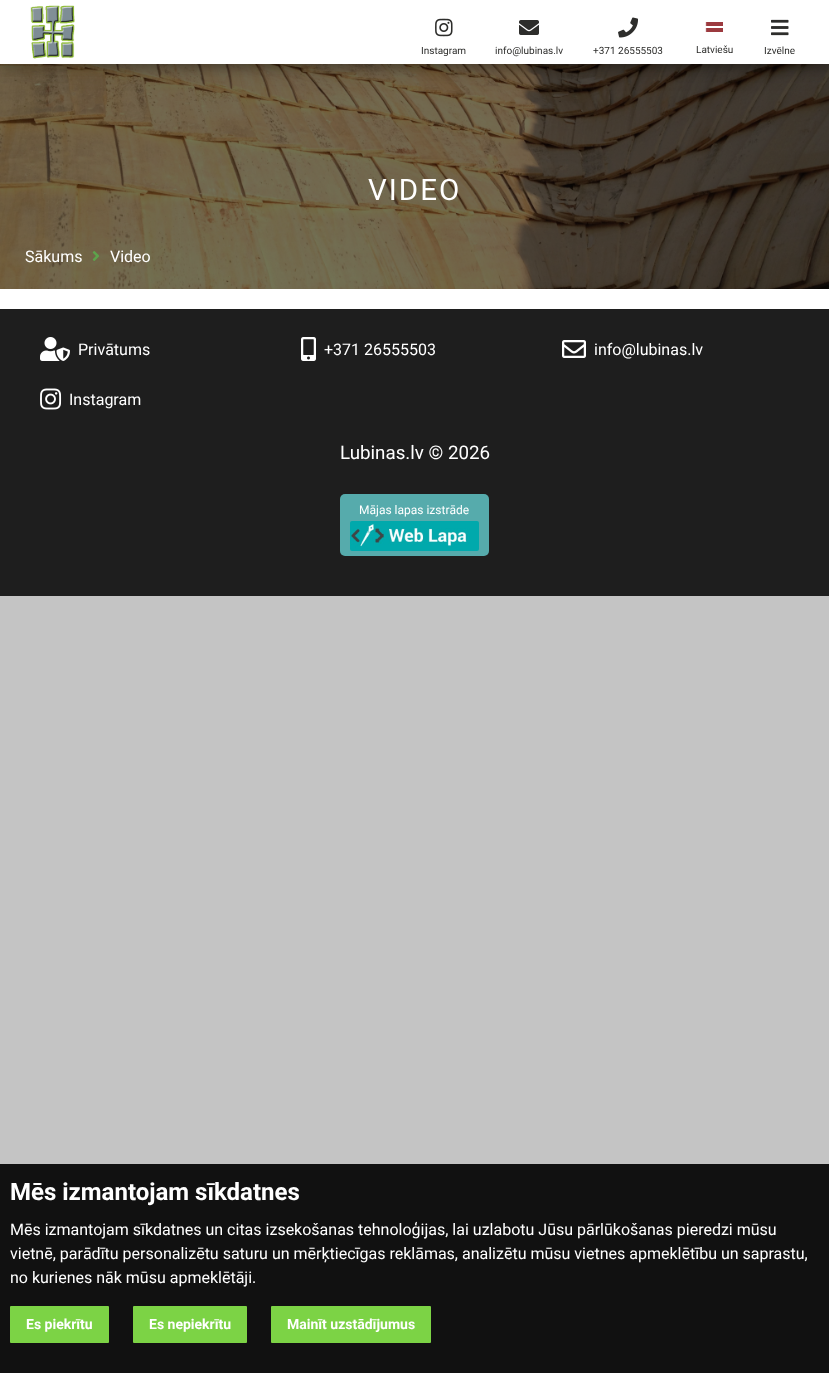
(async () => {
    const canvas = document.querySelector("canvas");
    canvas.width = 829;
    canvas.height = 1373;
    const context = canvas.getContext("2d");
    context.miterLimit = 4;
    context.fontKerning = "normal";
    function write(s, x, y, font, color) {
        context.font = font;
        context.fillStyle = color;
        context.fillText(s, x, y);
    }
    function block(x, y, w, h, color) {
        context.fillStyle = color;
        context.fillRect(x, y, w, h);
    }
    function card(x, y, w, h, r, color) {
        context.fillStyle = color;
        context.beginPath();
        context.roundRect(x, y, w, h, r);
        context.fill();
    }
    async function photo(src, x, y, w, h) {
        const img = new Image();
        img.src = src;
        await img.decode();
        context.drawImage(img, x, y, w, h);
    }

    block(0, 0, 829, 1373, "rgb(196, 196, 196)");
    await photo("media/7.png", 0, 64, 829, 225);
    context.fillStyle = "rgba(0, 0, 0, 0.19)";
    context.filter = "blur(10px)";
    context.beginPath();
    context.rect(0, 6, 829, 64);
    context.fill();
    context.filter = "none";
    context.fillStyle = "rgba(0, 0, 0, 0.2)";
    context.filter = "blur(4px)";
    context.beginPath();
    context.rect(0, 4, 829, 64);
    context.fill();
    context.filter = "none";
    block(0, 0, 829, 64, "rgb(255, 255, 255)");
    await photo("media/1.png", 30, 5, 45, 54);
    await photo("media/2.png", 435, 18, 18, 19);
    write("Instagram", 421, 54, "10px Roboto", "rgb(45, 45, 43)");
    await photo("media/3.png", 519, 20, 20, 15);
    write("info@lubinas.lv", 495, 54, "10px Roboto", "rgb(45, 45, 43)");
    await photo("media/4.png", 618, 17, 20, 21);
    write("+371 26555503", 593, 54, "10px Roboto", "rgb(45, 45, 43)");
    await photo("media/5.png", 705, 22, 18, 10);
    write("Latviešu", 696, 53, "10px Roboto", "rgb(45, 45, 43)");
    await photo("media/6.png", 771, 19, 18, 17);
    write("Izvēlne", 764, 54, "10px Roboto", "rgb(45, 45, 43)");
    context.letterSpacing = "2px";
    write("VIDEO", 368, 200, "29.5px Roboto", "rgb(255, 255, 255)");
    context.letterSpacing = "0px";
    write("Sākums", 25, 262, "16px Roboto", "rgb(255, 255, 255)");
    await photo("media/8.png", 92, 251, 7, 10);
    write("Video", 110, 262, "16px Roboto", "rgb(255, 255, 255)");
    block(0, 289, 829, 20, "rgb(255, 255, 255)");
    block(0, 309, 829, 287, "rgb(30, 30, 30)");
    await photo("media/9.png", 40, 337, 30, 24);
    write("Privātums", 78, 355, "16px Roboto", "rgb(255, 255, 255)");
    await photo("media/10.png", 301, 337, 15, 24);
    write("+371 26555503", 324, 355, "16px Roboto", "rgb(255, 255, 255)");
    await photo("media/11.png", 562, 340, 24, 18);
    write("info@lubinas.lv", 594, 355, "16px Roboto", "rgb(255, 255, 255)");
    await photo("media/12.png", 40, 388, 22, 22);
    write("Instagram", 69, 405, "16px Roboto", "rgb(255, 255, 255)");
    write("Lubinas.lv © 2026", 340, 459, "18.75px Roboto", "rgb(255, 255, 255)");
    card(340, 494, 149, 62, 5, "rgb(86, 171, 172)");
    write("Mājas lapas izstrāde", 359, 514, "12px Roboto", "rgb(255, 255, 255)");
    await photo("media/13.png", 350, 521, 129, 30);
    block(0, 1164, 829, 209, "rgb(17, 17, 17)");
    write("Mēs izmantojam sīkdatnes", 10, 1200, "bold 24px Roboto", "rgb(255, 255, 255)");
    write("Mēs izmantojam sīkdatnes un citas izsekošanas tehnoloģijas, lai uzlabotu Jūsu pārlūkošanas pieredzi mūsu", 10, 1235, "16px Roboto", "rgb(255, 255, 255)");
    write("vietnē, parādītu personalizētu saturu un mērķtiecīgas reklāmas, analizētu mūsu vietnes apmeklētību un saprastu,", 10, 1259, "16px Roboto", "rgb(255, 255, 255)");
    write("no kurienes nāk mūsu apmeklētāji.", 10, 1283, "16px Roboto", "rgb(255, 255, 255)");
    card(10, 1306, 99, 37, 1, "rgb(124, 211, 69)");
    write("Es piekrītu", 26, 1329, "bold 14px Roboto", "rgb(255, 255, 255)");
    card(133, 1306, 114, 37, 1, "rgb(124, 211, 69)");
    write("Es nepiekrītu", 149, 1329, "bold 14px Roboto", "rgb(255, 255, 255)");
    card(271, 1306, 160, 37, 1, "rgb(124, 211, 69)");
    write("Mainīt uzstādījumus", 287, 1329, "bold 14px Roboto", "rgb(255, 255, 255)");
})();
